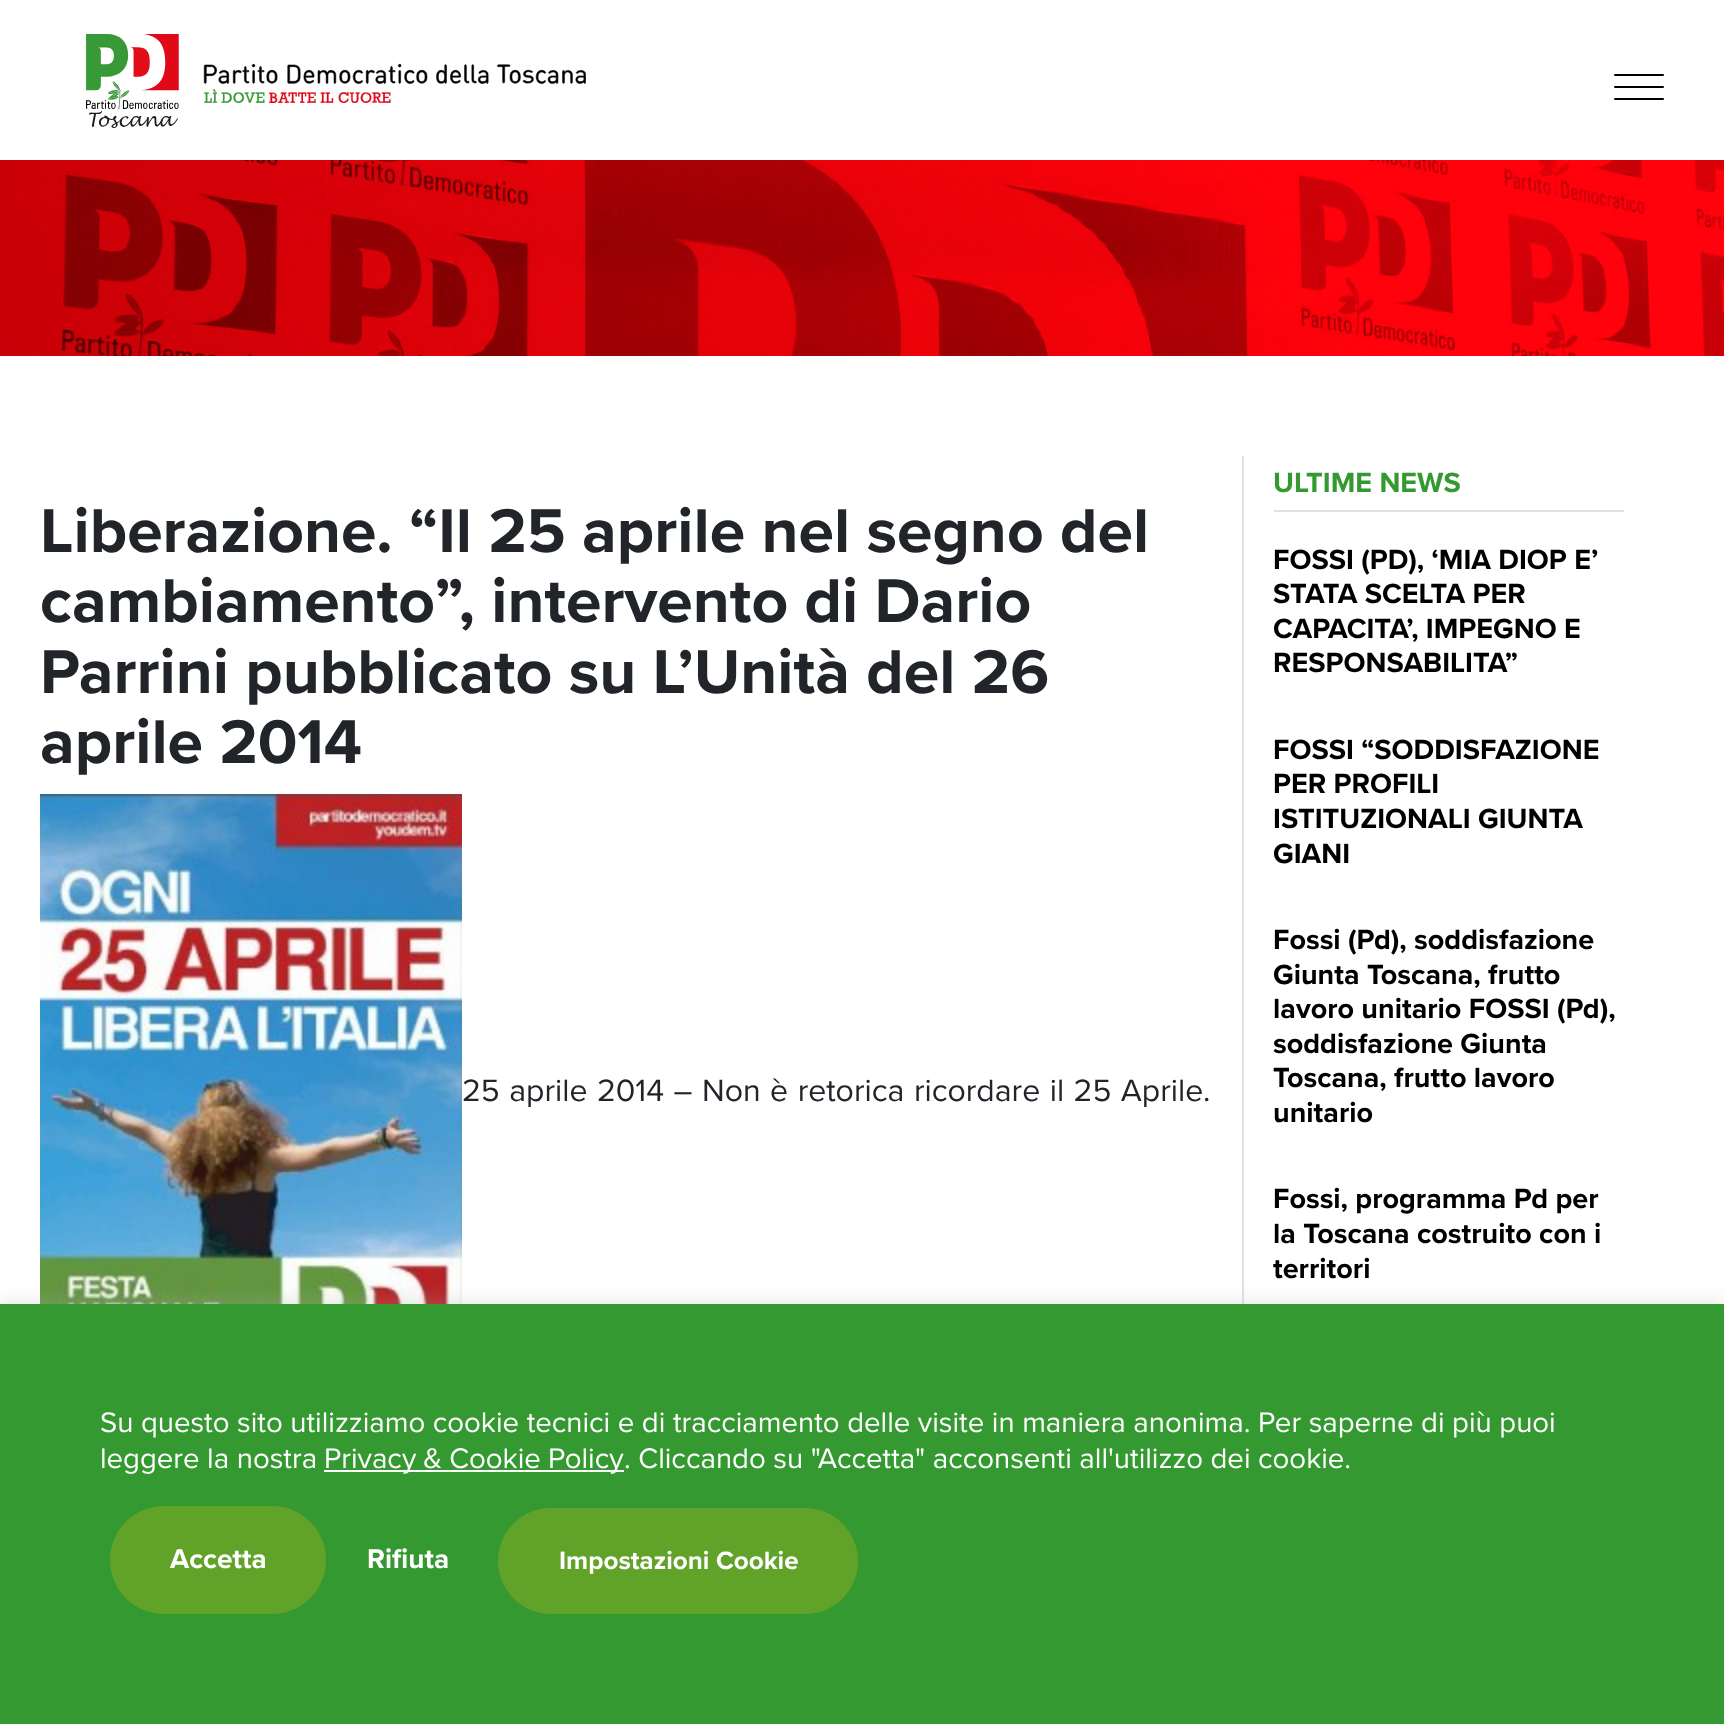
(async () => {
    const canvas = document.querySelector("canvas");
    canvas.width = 1724;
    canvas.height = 1724;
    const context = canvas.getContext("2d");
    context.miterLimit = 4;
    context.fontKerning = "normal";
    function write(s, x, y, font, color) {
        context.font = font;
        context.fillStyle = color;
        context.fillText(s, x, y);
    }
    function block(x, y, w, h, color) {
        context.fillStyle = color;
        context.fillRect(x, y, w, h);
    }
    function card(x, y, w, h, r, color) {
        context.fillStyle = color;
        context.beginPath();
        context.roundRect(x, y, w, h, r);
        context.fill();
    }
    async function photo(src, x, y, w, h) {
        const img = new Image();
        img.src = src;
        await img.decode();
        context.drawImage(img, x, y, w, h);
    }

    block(0, 0, 1724, 1724, "rgb(255, 255, 255)");
    await photo("media/1.png", 86, 34, 500, 94);
    card(1614, 74, 50, 2, 1, "rgb(0, 0, 0)");
    card(1614, 86, 50, 2, 1, "rgb(0, 0, 0)");
    card(1614, 98, 50, 2, 1, "rgb(0, 0, 0)");
    await photo("media/2.png", 0, 160, 1724, 196);
    block(1242, 456, 2, 848, "rgb(222, 226, 230)");
    write("Liberazione. “Il 25 aprile nel segno del", 40, 552, "bold 64px Proxima Nova", "rgb(33, 37, 41)");
    write("cambiamento”, intervento di Dario", 40, 622, "bold 64px Proxima Nova", "rgb(33, 37, 41)");
    write("Parrini pubblicato su L’Unità del 26", 40, 693, "bold 64px Proxima Nova", "rgb(33, 37, 41)");
    write("aprile 2014", 40, 763, "bold 64px Proxima Nova", "rgb(33, 37, 41)");
    await photo("media/3.png", 40, 794, 422, 510);
    context.wordSpacing = "1.25px";
    write("25 aprile 2014 – Non è retorica ricordare il 25 Aprile.", 462, 1101, "32px Proxima Nova", "rgb(33, 37, 41)");
    block(1274, 510, 350, 2, "rgb(222, 226, 230)");
    context.wordSpacing = "0px";
    write("ULTIME NEWS", 1273, 492, "bold 28.75px Proxima Nova", "rgb(53, 153, 49)");
    write("FOSSI (PD), ‘MIA DIOP E’", 1273, 569, "bold 28.75px Proxima Nova", "rgb(0, 0, 0)");
    write("STATA SCELTA PER", 1273, 603, "bold 28.75px Proxima Nova", "rgb(0, 0, 0)");
    write("CAPACITA’, IMPEGNO E", 1273, 638, "bold 28.75px Proxima Nova", "rgb(0, 0, 0)");
    write("RESPONSABILITA”", 1273, 672, "bold 28.75px Proxima Nova", "rgb(0, 0, 0)");
    write("FOSSI “SODDISFAZIONE", 1273, 759, "bold 28.75px Proxima Nova", "rgb(0, 0, 0)");
    write("PER PROFILI", 1273, 793, "bold 28.75px Proxima Nova", "rgb(0, 0, 0)");
    write("ISTITUZIONALI GIUNTA", 1273, 828, "bold 28.75px Proxima Nova", "rgb(0, 0, 0)");
    write("GIANI", 1273, 863, "bold 28.75px Proxima Nova", "rgb(0, 0, 0)");
    write("Fossi (Pd), soddisfazione", 1273, 949, "bold 28.75px Proxima Nova", "rgb(0, 0, 0)");
    write("Giunta Toscana, frutto", 1273, 984, "bold 28.75px Proxima Nova", "rgb(0, 0, 0)");
    write("lavoro unitario FOSSI (Pd),", 1273, 1018, "bold 28.75px Proxima Nova", "rgb(0, 0, 0)");
    write("soddisfazione Giunta", 1273, 1053, "bold 28.75px Proxima Nova", "rgb(0, 0, 0)");
    write("Toscana, frutto lavoro", 1273, 1087, "bold 28.75px Proxima Nova", "rgb(0, 0, 0)");
    write("unitario", 1273, 1122, "bold 28.75px Proxima Nova", "rgb(0, 0, 0)");
    write("Fossi, programma Pd per", 1273, 1208, "bold 28.75px Proxima Nova", "rgb(0, 0, 0)");
    write("la Toscana costruito con i", 1273, 1243, "bold 28.75px Proxima Nova", "rgb(0, 0, 0)");
    write("territori", 1273, 1278, "bold 28.75px Proxima Nova", "rgb(0, 0, 0)");
    context.fillStyle = "rgba(172, 171, 171, 0.3)";
    context.filter = "blur(10px)";
    context.beginPath();
    context.rect(0, 1302, 1724, 420);
    context.fill();
    context.filter = "none";
    block(0, 1304, 1724, 420, "rgb(53, 153, 49)");
    write("Su questo sito utilizziamo cookie tecnici e di tracciamento delle visite in maniera anonima. Per saperne di più puoi", 100, 1432, "29.35px Proxima Nova", "rgb(255, 255, 255)");
    write("leggere la nostra", 100, 1468, "29.35px Proxima Nova", "rgb(255, 255, 255)");
    block(324, 1470, 300, 2, "rgb(255, 255, 255)");
    context.wordSpacing = "-0.5px";
    write("Privacy & Cookie Policy", 324, 1468, "29.35px Proxima Nova", "rgb(255, 255, 255)");
    context.wordSpacing = "0px";
    write(". Cliccando su \"Accetta\" acconsenti all'utilizzo dei cookie.", 624, 1468, "29.35px Proxima Nova", "rgb(255, 255, 255)");
    card(110, 1506, 216, 108, 54, "rgb(97, 162, 41)");
    write("Accetta", 170, 1568, "bold 28px Proxima Nova", "rgb(255, 255, 255)");
    write("Rifiuta", 367, 1568, "bold 28px Proxima Nova", "rgb(255, 255, 255)");
    card(498, 1508, 360, 106, 53, "rgb(97, 162, 41)");
    write("Impostazioni Cookie", 559, 1569, "bold 26px Proxima Nova", "rgb(255, 255, 255)");
})();
